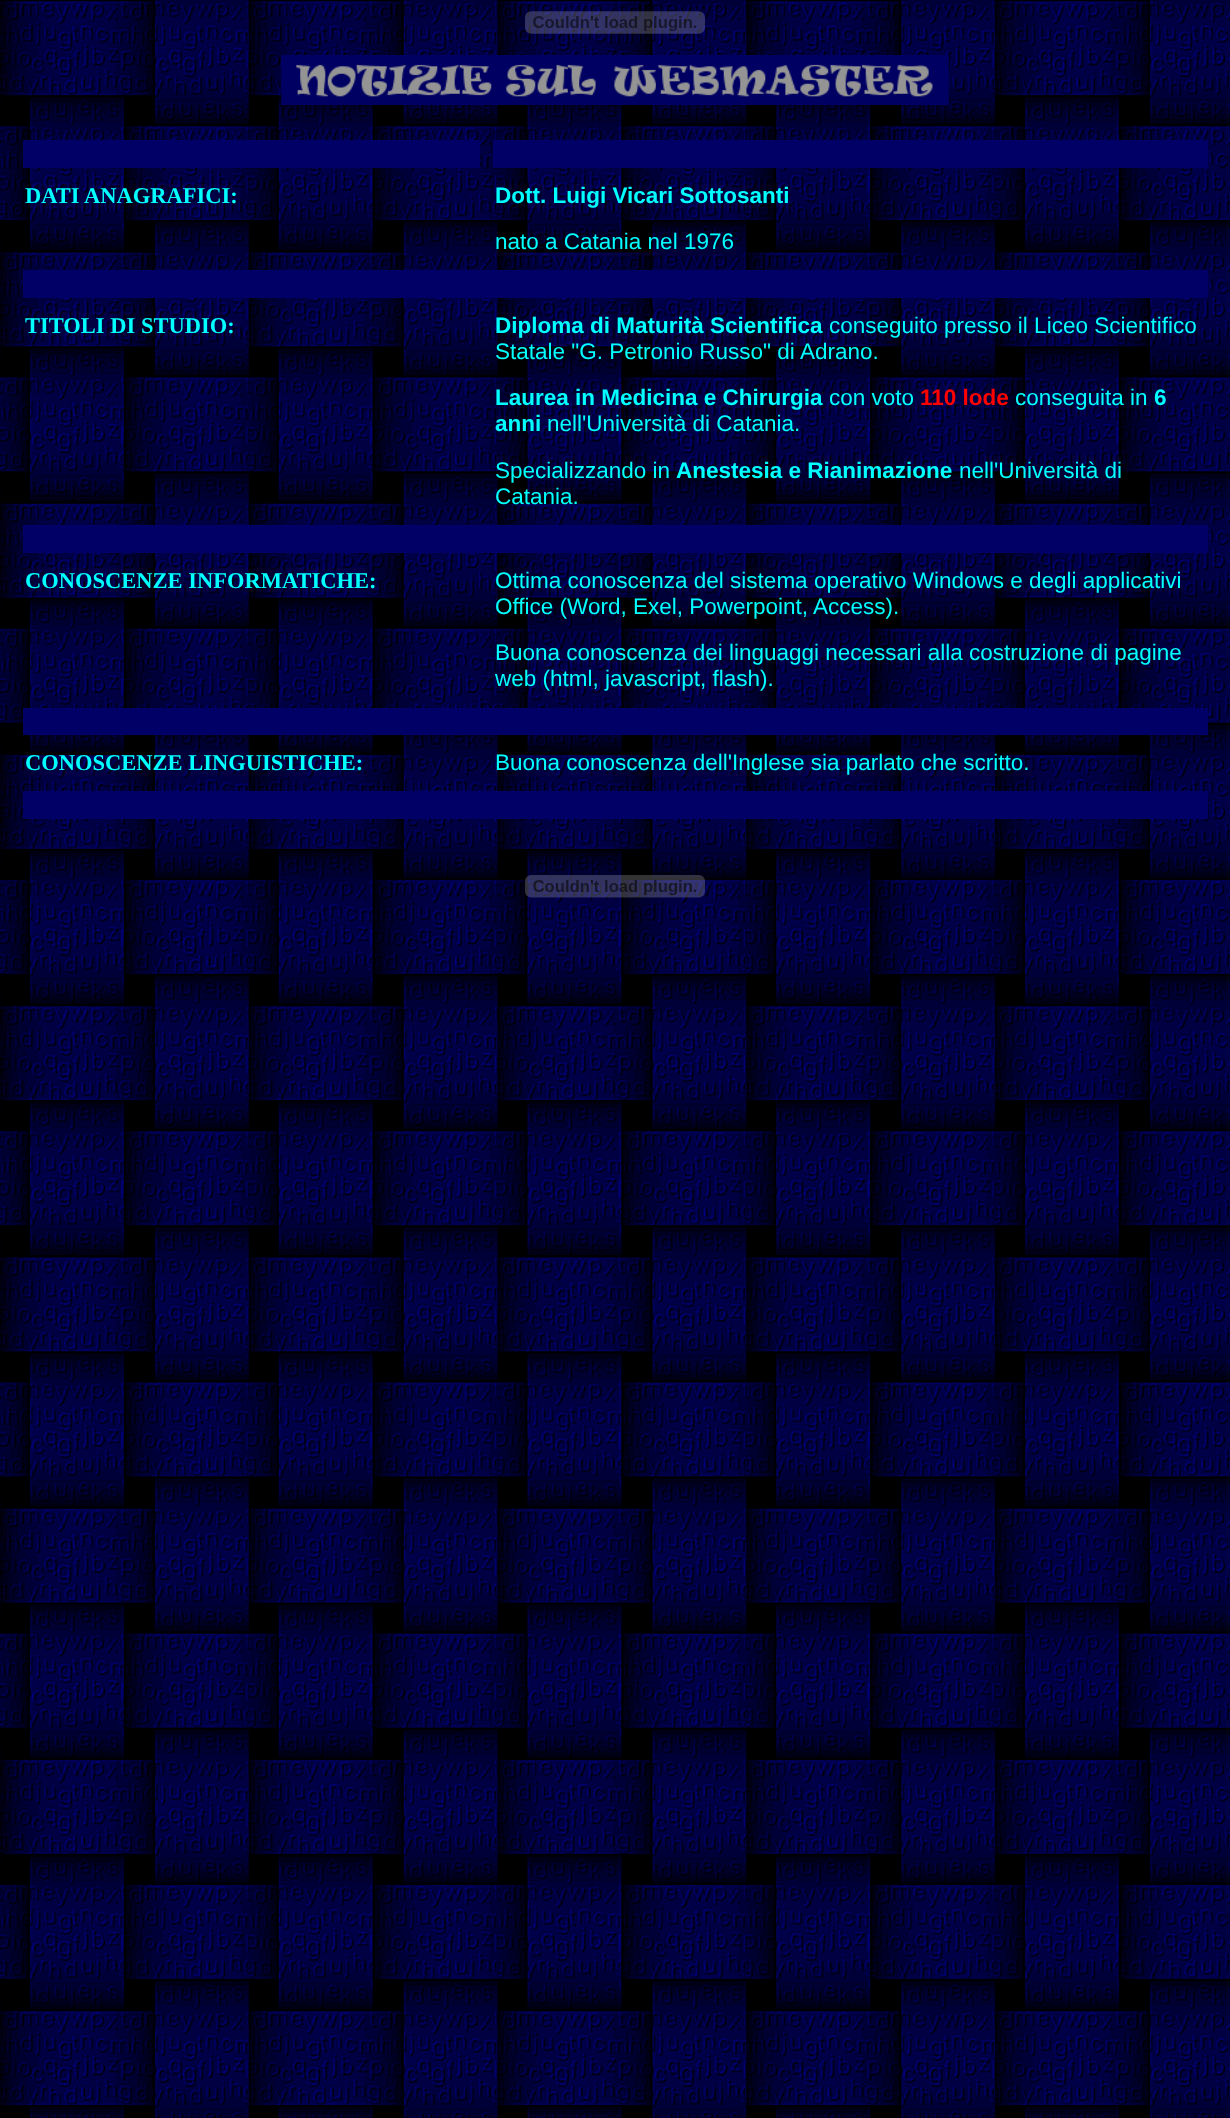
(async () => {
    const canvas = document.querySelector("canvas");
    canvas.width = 1230;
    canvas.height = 2118;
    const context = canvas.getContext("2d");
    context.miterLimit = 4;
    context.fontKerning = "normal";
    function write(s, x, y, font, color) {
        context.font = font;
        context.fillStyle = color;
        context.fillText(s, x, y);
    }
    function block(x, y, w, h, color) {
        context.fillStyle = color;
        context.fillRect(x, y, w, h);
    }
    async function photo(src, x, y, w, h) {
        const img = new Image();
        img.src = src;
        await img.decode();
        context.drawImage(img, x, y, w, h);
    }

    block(0, 0, 1230, 2118, "rgb(255, 255, 255)");
    await photo("media/1.png", 0, 0, 1230, 2118);
    await photo("media/2.png", 525, 11, 180, 23);
    await photo("media/3.png", 281, 55, 668, 50);
    block(23, 140, 457, 28, "rgb(0, 0, 102)");
    block(493, 140, 715, 28, "rgb(0, 0, 102)");
    write("DATI", 25, 203, "bold 22.5px Liberation Serif", "rgb(0, 255, 255)");
    write("ANAGRAFICI:", 84, 203, "bold 22.5px Liberation Serif", "rgb(0, 255, 255)");
    write("Dott. Luigi Vicari Sottosanti", 495, 203, "bold 22.5px Liberation Sans", "rgb(0, 255, 255)");
    write("nato a Catania nel 1976", 495, 249, "22.5px Liberation Sans", "rgb(0, 255, 255)");
    block(23, 270, 1185, 28, "rgb(0, 0, 102)");
    write("TITOLI DI STUDIO:", 25, 333, "bold 22.5px Liberation Serif", "rgb(0, 255, 255)");
    write("Diploma di Maturità Scientifica", 495, 333, "bold 22.5px Liberation Sans", "rgb(0, 255, 255)");
    write("conseguito presso il Liceo Scientifico", 829, 333, "22.5px Liberation Sans", "rgb(0, 255, 255)");
    write("Statale \"G. Petronio Russo\" di Adrano.", 495, 359, "22.5px Liberation Sans", "rgb(0, 255, 255)");
    write("Laurea in Medicina e Chirurgia", 495, 405, "bold 22.5px Liberation Sans", "rgb(0, 255, 255)");
    write("con voto", 829, 405, "22.5px Liberation Sans", "rgb(0, 255, 255)");
    write("110 lode", 920, 405, "bold 22.5px Liberation Sans", "rgb(255, 0, 0)");
    write("conseguita in", 1015, 405, "22.5px Liberation Sans", "rgb(0, 255, 255)");
    write("6", 1154, 405, "bold 22.5px Liberation Sans", "rgb(0, 255, 255)");
    write("anni", 495, 431, "bold 22.5px Liberation Sans", "rgb(0, 255, 255)");
    write("nell'Università di Catania.", 547, 431, "22.5px Liberation Sans", "rgb(0, 255, 255)");
    write("Specializzando in", 495, 478, "22.5px Liberation Sans", "rgb(0, 255, 255)");
    write("Anestesia e Rianimazione", 676, 478, "bold 22.5px Liberation Sans", "rgb(0, 255, 255)");
    write("nell'Università di", 959, 478, "22.5px Liberation Sans", "rgb(0, 255, 255)");
    write("Catania.", 495, 504, "22.5px Liberation Sans", "rgb(0, 255, 255)");
    block(23, 525, 1185, 28, "rgb(0, 0, 102)");
    write("CONOSCENZE INFORMATICHE:", 25, 588, "bold 22.5px Liberation Serif", "rgb(0, 255, 255)");
    write("Ottima conoscenza del sistema operativo Windows e degli applicativi", 495, 588, "22.5px Liberation Sans", "rgb(0, 255, 255)");
    write("Office (Word, Exel, Powerpoint, Access).", 495, 614, "22.5px Liberation Sans", "rgb(0, 255, 255)");
    write("Buona conoscenza dei linguaggi necessari alla costruzione di pagine", 495, 660, "22.5px Liberation Sans", "rgb(0, 255, 255)");
    write("web (html, javascript, flash).", 495, 686, "22.5px Liberation Sans", "rgb(0, 255, 255)");
    block(23, 708, 1185, 27, "rgb(0, 0, 102)");
    write("CONOSCENZE LINGUISTICHE:", 25, 770, "bold 22.5px Liberation Serif", "rgb(0, 255, 255)");
    write("Buona conoscenza dell'Inglese sia parlato che scritto.", 495, 770, "22.5px Liberation Sans", "rgb(0, 255, 255)");
    block(23, 791, 1185, 28, "rgb(0, 0, 102)");
    await photo("media/4.png", 525, 875, 180, 23);
})();
